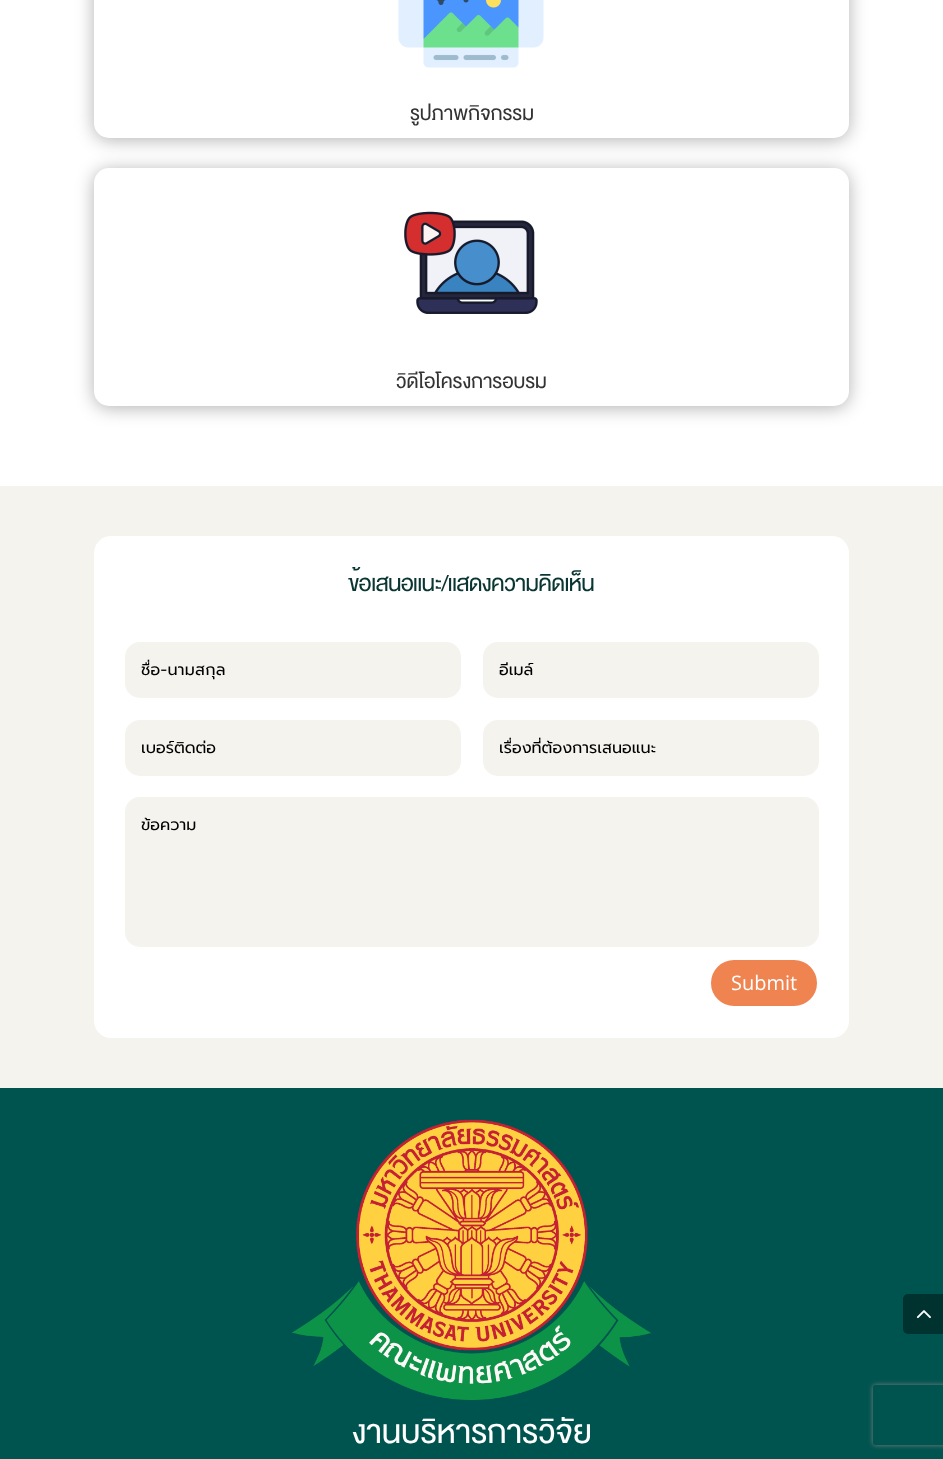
(async () => {
    const canvas = document.querySelector("canvas");
    canvas.width = 943;
    canvas.height = 1459;
    const context = canvas.getContext("2d");
    context.miterLimit = 4;
    context.fontKerning = "normal";
    function write(s, x, y, font, color) {
        context.font = font;
        context.fillStyle = color;
        context.fillText(s, x, y);
    }
    function block(x, y, w, h, color) {
        context.fillStyle = color;
        context.fillRect(x, y, w, h);
    }
    function card(x, y, w, h, r, color) {
        context.fillStyle = color;
        context.beginPath();
        context.roundRect(x, y, w, h, r);
        context.fill();
    }
    async function photo(src, x, y, w, h) {
        const img = new Image();
        img.src = src;
        await img.decode();
        context.drawImage(img, x, y, w, h);
    }

    block(0, 0, 943, 1459, "rgb(255, 255, 255)");
    context.fillStyle = "rgba(0, 0, 0, 0.3)";
    context.filter = "blur(9px)";
    context.beginPath();
    context.roundRect(94, -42, 755, 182, 15);
    context.fill();
    context.filter = "none";
    card(94, -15, 755, 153, 15, "rgb(255, 255, 255)");
    await photo("media/1.png", 398, 0, 146, 68);
    write("รูปภาพกิจกรรม", 410, 120, "28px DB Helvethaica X", "rgb(51, 51, 51)");
    context.fillStyle = "rgba(0, 0, 0, 0.3)";
    context.filter = "blur(9px)";
    context.beginPath();
    context.roundRect(94, 170, 755, 238, 15);
    context.fill();
    context.filter = "none";
    card(94, 168, 755, 238, 15, "rgb(255, 255, 255)");
    await photo("media/2.png", 404, 211, 134, 103);
    write("วิดีโอโครงการอบรม", 396, 388, "28px DB Helvethaica X", "rgb(51, 51, 51)");
    block(0, 486, 943, 602, "rgb(245, 243, 238)");
    card(94, 536, 755, 502, 17, "rgb(255, 255, 255)");
    context.letterSpacing = "-0.65px";
    write("ข้อเสนอแนะ/แสดงความคิดเห็น", 348, 591, "32px DB Helvethaica X", "rgb(9, 53, 50)");
    card(125, 642, 336, 56, 15, "rgb(245, 243, 238)");
    context.save();
    context.beginPath();
    context.rect(141, 658, 304, 24);
    context.clip();
    context.letterSpacing = "0.25px";
    write("ชื่อ-นามสกุล", 141, 675, "16px Prompt", "rgb(0, 0, 0)");
    context.restore();
    card(483, 642, 336, 56, 15, "rgb(245, 243, 238)");
    context.save();
    context.beginPath();
    context.rect(499, 658, 304, 24);
    context.clip();
    context.letterSpacing = "0px";
    write("อีเมล์", 499, 675, "16px Prompt", "rgb(0, 0, 0)");
    context.restore();
    card(125, 720, 336, 56, 15, "rgb(245, 243, 238)");
    context.letterSpacing = "0px";
    write("เบอร์ติดต่อ", 141, 753, "16px Prompt", "rgb(0, 0, 0)");
    card(483, 720, 336, 56, 15, "rgb(245, 243, 238)");
    context.save();
    context.beginPath();
    context.rect(499, 736, 304, 24);
    context.clip();
    write("เรื่องที่ต้องการเสนอแนะ", 499, 753, "16px Prompt", "rgb(0, 0, 0)");
    context.restore();
    card(125, 797, 694, 150, 15, "rgb(245, 243, 238)");
    write("ข้อความ", 141, 830, "16px Prompt", "rgb(0, 0, 0)");
    context.fillStyle = "rgb(239, 132, 81)";
    context.beginPath();
    context.roundRect(710, 959, 108, 48, 24);
    context.fill();
    context.strokeStyle = "rgb(255, 255, 255)";
    context.lineWidth = 2;
    context.stroke();
    write("Submit", 731, 990, "20px Open Sans", "rgb(255, 255, 255)");
    block(0, 1088, 943, 371, "rgb(0, 84, 80)");
    await photo("media/3.png", 292, 1119, 359, 281);
    write("งานบริหารการวิจัย", 352, 1443, "46px DB Helvethaica X", "rgb(255, 255, 255)");
    context.fillStyle = "rgb(0, 50, 48)";
    context.beginPath();
    context.roundRect(903, 1294, 40, 40, [5, 0, 0, 5]);
    context.fill();
    await photo("media/4.png", 916, 1310, 15, 9);
    context.save();
    context.beginPath();
    context.moveTo(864, 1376);
    context.lineTo(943, 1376);
    context.lineTo(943, 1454);
    context.lineTo(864, 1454);
    context.closePath();
    context.moveTo(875, 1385);
    context.lineTo(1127, 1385);
    context.bezierCurveTo(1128, 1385, 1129, 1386, 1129, 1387);
    context.lineTo(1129, 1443);
    context.bezierCurveTo(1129, 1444, 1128, 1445, 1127, 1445);
    context.lineTo(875, 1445);
    context.bezierCurveTo(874, 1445, 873, 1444, 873, 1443);
    context.lineTo(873, 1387);
    context.bezierCurveTo(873, 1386, 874, 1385, 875, 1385);
    context.closePath();
    context.clip("evenodd");
    context.fillStyle = "rgb(128, 128, 128)";
    context.filter = "blur(2.5px)";
    context.beginPath();
    context.roundRect(873, 1385, 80, 60, 2);
    context.fill();
    context.filter = "none";
    context.restore();
})();
